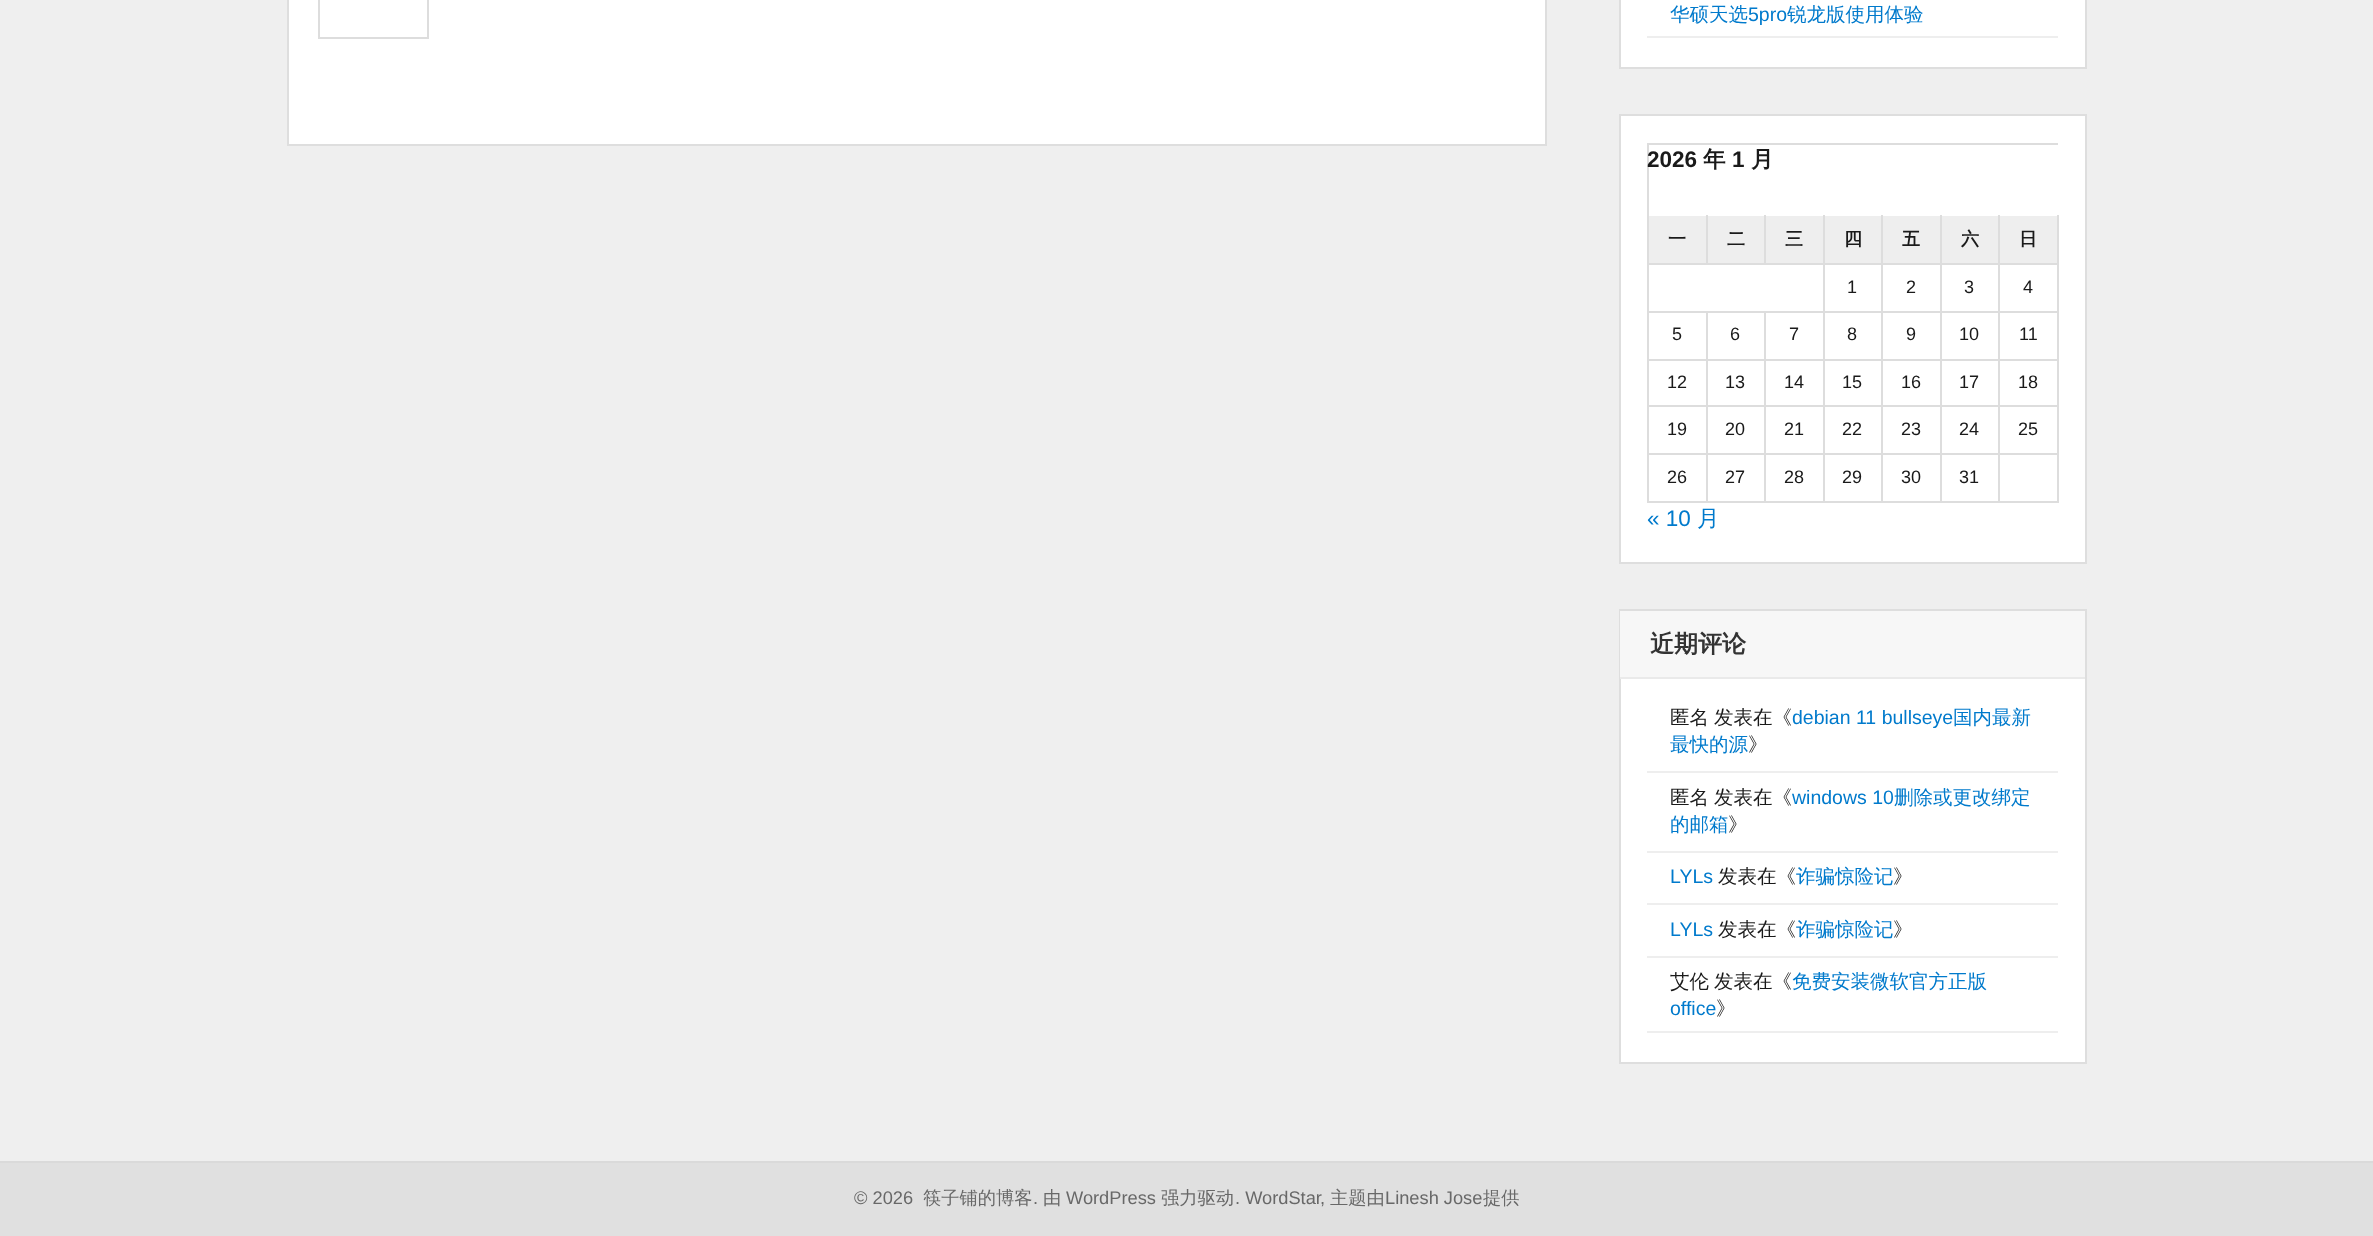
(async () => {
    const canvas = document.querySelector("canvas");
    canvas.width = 2373;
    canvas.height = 1236;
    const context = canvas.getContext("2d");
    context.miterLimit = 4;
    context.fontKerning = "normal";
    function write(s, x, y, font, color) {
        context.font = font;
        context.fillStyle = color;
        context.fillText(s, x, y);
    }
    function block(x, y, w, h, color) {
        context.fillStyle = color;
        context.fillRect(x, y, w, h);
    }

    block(0, 0, 2373, 1236, "rgb(239, 239, 239)");
    context.fillStyle = "rgb(255, 255, 255)";
    context.beginPath();
    context.rect(288, -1, 1258, 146);
    context.fill();
    context.strokeStyle = "rgb(222, 222, 222)";
    context.lineWidth = 2;
    context.stroke();
    context.strokeStyle = "rgb(221, 221, 221)";
    context.strokeRect(319, -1, 109, 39);
    context.beginPath();
    context.rect(1620, -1, 466, 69);
    context.fill();
    context.strokeStyle = "rgb(222, 222, 222)";
    context.stroke();
    write("华硕天选", 1670, 21, "500 19.5px WenQuanYi Zen Hei", "rgb(0, 122, 204)");
    write("5pro", 1748, 21, "19.5px Liberation Sans", "rgb(0, 122, 204)");
    write("锐龙版使用体验", 1787, 21, "500 19.5px WenQuanYi Zen Hei", "rgb(0, 122, 204)");
    block(1647, 36, 411, 2, "rgb(238, 238, 238)");
    context.fillStyle = "rgb(255, 255, 255)";
    context.beginPath();
    context.rect(1620, 115, 466, 448);
    context.fill();
    context.stroke();
    block(1647, 143, 411, 2, "rgb(221, 221, 221)");
    block(1647, 143, 2, 360, "rgb(221, 221, 221)");
    write("2026", 1647, 167, "bold 22.5px Liberation Sans", "rgb(26, 26, 26)");
    write("年", 1703, 167, "bold 22.5px WenQuanYi Zen Hei", "rgb(26, 26, 26)");
    write("1", 1732, 167, "bold 22.5px Liberation Sans", "rgb(26, 26, 26)");
    write("月", 1751, 167, "bold 22.5px WenQuanYi Zen Hei", "rgb(26, 26, 26)");
    block(1649, 216, 57, 47, "rgb(238, 238, 238)");
    block(2057, 215, 2, 288, "rgb(221, 221, 221)");
    block(1998, 501, 60, 2, "rgb(221, 221, 221)");
    block(1998, 453, 2, 50, "rgb(221, 221, 221)");
    block(1998, 453, 60, 2, "rgb(221, 221, 221)");
    block(1998, 405, 2, 50, "rgb(221, 221, 221)");
    block(1998, 405, 60, 2, "rgb(221, 221, 221)");
    block(1998, 359, 2, 48, "rgb(221, 221, 221)");
    block(1998, 359, 60, 2, "rgb(221, 221, 221)");
    block(1998, 311, 2, 49, "rgb(221, 221, 221)");
    block(1998, 311, 60, 2, "rgb(221, 221, 221)");
    block(1998, 263, 2, 49, "rgb(221, 221, 221)");
    block(1998, 263, 60, 2, "rgb(221, 221, 221)");
    block(1998, 215, 2, 49, "rgb(221, 221, 221)");
    block(1940, 501, 60, 2, "rgb(221, 221, 221)");
    block(1940, 453, 2, 50, "rgb(221, 221, 221)");
    block(1940, 453, 60, 2, "rgb(221, 221, 221)");
    block(1940, 405, 2, 50, "rgb(221, 221, 221)");
    block(1940, 405, 60, 2, "rgb(221, 221, 221)");
    block(1940, 359, 2, 48, "rgb(221, 221, 221)");
    block(1940, 359, 60, 2, "rgb(221, 221, 221)");
    block(1940, 311, 2, 49, "rgb(221, 221, 221)");
    block(1940, 311, 60, 2, "rgb(221, 221, 221)");
    block(1940, 263, 2, 49, "rgb(221, 221, 221)");
    block(1940, 263, 60, 2, "rgb(221, 221, 221)");
    block(1940, 215, 2, 49, "rgb(221, 221, 221)");
    block(1881, 501, 60, 2, "rgb(221, 221, 221)");
    block(1881, 453, 2, 50, "rgb(221, 221, 221)");
    block(1881, 453, 60, 2, "rgb(221, 221, 221)");
    block(1881, 405, 2, 50, "rgb(221, 221, 221)");
    block(1881, 405, 60, 2, "rgb(221, 221, 221)");
    block(1881, 359, 2, 48, "rgb(221, 221, 221)");
    block(1881, 359, 60, 2, "rgb(221, 221, 221)");
    block(1881, 311, 2, 49, "rgb(221, 221, 221)");
    block(1881, 311, 60, 2, "rgb(221, 221, 221)");
    block(1881, 263, 2, 49, "rgb(221, 221, 221)");
    block(1881, 263, 60, 2, "rgb(221, 221, 221)");
    block(1881, 215, 2, 49, "rgb(221, 221, 221)");
    block(1823, 501, 60, 2, "rgb(221, 221, 221)");
    block(1823, 453, 2, 50, "rgb(221, 221, 221)");
    block(1823, 453, 60, 2, "rgb(221, 221, 221)");
    block(1823, 405, 2, 50, "rgb(221, 221, 221)");
    block(1823, 405, 60, 2, "rgb(221, 221, 221)");
    block(1823, 359, 2, 48, "rgb(221, 221, 221)");
    block(1823, 359, 60, 2, "rgb(221, 221, 221)");
    block(1823, 311, 2, 49, "rgb(221, 221, 221)");
    block(1823, 311, 60, 2, "rgb(221, 221, 221)");
    block(1823, 263, 2, 49, "rgb(221, 221, 221)");
    block(1823, 263, 60, 2, "rgb(221, 221, 221)");
    block(1823, 215, 2, 49, "rgb(221, 221, 221)");
    block(1764, 263, 60, 2, "rgb(221, 221, 221)");
    block(1764, 215, 2, 49, "rgb(221, 221, 221)");
    block(1706, 263, 60, 2, "rgb(221, 221, 221)");
    block(1706, 215, 2, 49, "rgb(221, 221, 221)");
    block(1647, 263, 60, 2, "rgb(221, 221, 221)");
    write("一", 1668, 245, "bold 18px WenQuanYi Zen Hei", "rgb(26, 26, 26)");
    block(1708, 216, 56, 47, "rgb(238, 238, 238)");
    write("二", 1727, 245, "bold 18px WenQuanYi Zen Hei", "rgb(26, 26, 26)");
    block(1766, 216, 57, 47, "rgb(238, 238, 238)");
    write("三", 1785, 245, "bold 18px WenQuanYi Zen Hei", "rgb(26, 26, 26)");
    block(1825, 216, 56, 47, "rgb(238, 238, 238)");
    write("四", 1844, 245, "bold 18px WenQuanYi Zen Hei", "rgb(26, 26, 26)");
    block(1883, 216, 57, 47, "rgb(238, 238, 238)");
    write("五", 1902, 245, "bold 18px WenQuanYi Zen Hei", "rgb(26, 26, 26)");
    block(1942, 216, 56, 47, "rgb(238, 238, 238)");
    write("六", 1961, 245, "bold 18px WenQuanYi Zen Hei", "rgb(26, 26, 26)");
    block(2000, 216, 57, 47, "rgb(238, 238, 238)");
    write("日", 2019, 245, "bold 18px WenQuanYi Zen Hei", "rgb(26, 26, 26)");
    block(1764, 501, 60, 2, "rgb(221, 221, 221)");
    block(1764, 453, 2, 50, "rgb(221, 221, 221)");
    block(1764, 453, 60, 2, "rgb(221, 221, 221)");
    block(1764, 405, 2, 50, "rgb(221, 221, 221)");
    block(1764, 405, 60, 2, "rgb(221, 221, 221)");
    block(1764, 359, 2, 48, "rgb(221, 221, 221)");
    block(1764, 359, 60, 2, "rgb(221, 221, 221)");
    block(1764, 311, 2, 49, "rgb(221, 221, 221)");
    block(1706, 501, 60, 2, "rgb(221, 221, 221)");
    block(1706, 453, 2, 50, "rgb(221, 221, 221)");
    block(1706, 453, 60, 2, "rgb(221, 221, 221)");
    block(1706, 405, 2, 50, "rgb(221, 221, 221)");
    block(1706, 405, 60, 2, "rgb(221, 221, 221)");
    block(1706, 359, 2, 48, "rgb(221, 221, 221)");
    block(1706, 359, 60, 2, "rgb(221, 221, 221)");
    block(1706, 311, 2, 49, "rgb(221, 221, 221)");
    block(1647, 311, 177, 2, "rgb(221, 221, 221)");
    write("1", 1847, 293, "18px Liberation Sans", "rgb(26, 26, 26)");
    write("2", 1906, 293, "18px Liberation Sans", "rgb(26, 26, 26)");
    write("3", 1964, 293, "18px Liberation Sans", "rgb(26, 26, 26)");
    write("4", 2023, 293, "18px Liberation Sans", "rgb(26, 26, 26)");
    block(1647, 359, 60, 2, "rgb(221, 221, 221)");
    write("5", 1672, 340, "18px Liberation Sans", "rgb(26, 26, 26)");
    write("6", 1730, 340, "18px Liberation Sans", "rgb(26, 26, 26)");
    write("7", 1789, 340, "18px Liberation Sans", "rgb(26, 26, 26)");
    write("8", 1847, 340, "18px Liberation Sans", "rgb(26, 26, 26)");
    write("9", 1906, 340, "18px Liberation Sans", "rgb(26, 26, 26)");
    write("10", 1959, 340, "18px Liberation Sans", "rgb(26, 26, 26)");
    write("11", 2019, 340, "18px Liberation Sans", "rgb(26, 26, 26)");
    block(1647, 405, 60, 2, "rgb(221, 221, 221)");
    write("12", 1667, 388, "18px Liberation Sans", "rgb(26, 26, 26)");
    write("13", 1725, 388, "18px Liberation Sans", "rgb(26, 26, 26)");
    write("14", 1784, 388, "18px Liberation Sans", "rgb(26, 26, 26)");
    write("15", 1842, 388, "18px Liberation Sans", "rgb(26, 26, 26)");
    write("16", 1901, 388, "18px Liberation Sans", "rgb(26, 26, 26)");
    write("17", 1959, 388, "18px Liberation Sans", "rgb(26, 26, 26)");
    write("18", 2018, 388, "18px Liberation Sans", "rgb(26, 26, 26)");
    block(1647, 453, 60, 2, "rgb(221, 221, 221)");
    write("19", 1667, 435, "18px Liberation Sans", "rgb(26, 26, 26)");
    write("20", 1725, 435, "18px Liberation Sans", "rgb(26, 26, 26)");
    write("21", 1784, 435, "18px Liberation Sans", "rgb(26, 26, 26)");
    write("22", 1842, 435, "18px Liberation Sans", "rgb(26, 26, 26)");
    write("23", 1901, 435, "18px Liberation Sans", "rgb(26, 26, 26)");
    write("24", 1959, 435, "18px Liberation Sans", "rgb(26, 26, 26)");
    write("25", 2018, 435, "18px Liberation Sans", "rgb(26, 26, 26)");
    block(1647, 501, 60, 2, "rgb(221, 221, 221)");
    write("26", 1667, 483, "18px Liberation Sans", "rgb(26, 26, 26)");
    write("27", 1725, 483, "18px Liberation Sans", "rgb(26, 26, 26)");
    write("28", 1784, 483, "18px Liberation Sans", "rgb(26, 26, 26)");
    write("29", 1842, 483, "18px Liberation Sans", "rgb(26, 26, 26)");
    write("30", 1901, 483, "18px Liberation Sans", "rgb(26, 26, 26)");
    write("31", 1959, 483, "18px Liberation Sans", "rgb(26, 26, 26)");
    write("« 10", 1647, 526, "22.5px Liberation Sans", "rgb(0, 122, 204)");
    write("月", 1697, 526, "500 22.5px WenQuanYi Zen Hei", "rgb(0, 122, 204)");
    block(1621, 679, 464, 383, "rgb(255, 255, 255)");
    context.strokeRect(1620, 610, 466, 453);
    block(1620, 611, 465, 66, "rgb(247, 247, 247)");
    block(1620, 677, 465, 2, "rgb(234, 234, 234)");
    write("近期评论", 1650, 652, "bold 24px WenQuanYi Zen Hei", "rgb(51, 51, 51)");
    block(1647, 771, 411, 2, "rgb(238, 238, 238)");
    write("匿名", 1670, 724, "500 19.5px WenQuanYi Zen Hei", "rgb(26, 26, 26)");
    write("发表在《", 1714, 724, "500 19.5px WenQuanYi Zen Hei", "rgb(26, 26, 26)");
    write("debian 11 bullseye", 1792, 724, "19.5px Liberation Sans", "rgb(0, 122, 204)");
    write("国内最新", 1953, 724, "500 19.5px WenQuanYi Zen Hei", "rgb(0, 122, 204)");
    write("最快的源", 1670, 751, "500 19.5px WenQuanYi Zen Hei", "rgb(0, 122, 204)");
    write("》", 1748, 751, "500 19.5px WenQuanYi Zen Hei", "rgb(26, 26, 26)");
    block(1647, 851, 411, 2, "rgb(238, 238, 238)");
    write("匿名", 1670, 804, "500 19.5px WenQuanYi Zen Hei", "rgb(26, 26, 26)");
    write("发表在《", 1714, 804, "500 19.5px WenQuanYi Zen Hei", "rgb(26, 26, 26)");
    write("windows 10", 1792, 804, "19.5px Liberation Sans", "rgb(0, 122, 204)");
    write("删除或更改绑定", 1894, 804, "500 19.5px WenQuanYi Zen Hei", "rgb(0, 122, 204)");
    write("的邮箱", 1670, 831, "500 19.5px WenQuanYi Zen Hei", "rgb(0, 122, 204)");
    write("》", 1728, 831, "500 19.5px WenQuanYi Zen Hei", "rgb(26, 26, 26)");
    block(1647, 903, 411, 2, "rgb(238, 238, 238)");
    write("LYLs", 1670, 883, "19.5px Liberation Sans", "rgb(0, 122, 204)");
    write("发表在《", 1718, 883, "500 19.5px WenQuanYi Zen Hei", "rgb(26, 26, 26)");
    write("诈骗惊险记", 1796, 883, "500 19.5px WenQuanYi Zen Hei", "rgb(0, 122, 204)");
    write("》", 1893, 883, "500 19.5px WenQuanYi Zen Hei", "rgb(26, 26, 26)");
    block(1647, 956, 411, 2, "rgb(238, 238, 238)");
    write("LYLs", 1670, 936, "19.5px Liberation Sans", "rgb(0, 122, 204)");
    write("发表在《", 1718, 936, "500 19.5px WenQuanYi Zen Hei", "rgb(26, 26, 26)");
    write("诈骗惊险记", 1796, 936, "500 19.5px WenQuanYi Zen Hei", "rgb(0, 122, 204)");
    write("》", 1893, 936, "500 19.5px WenQuanYi Zen Hei", "rgb(26, 26, 26)");
    write("艾伦", 1670, 988, "500 19.5px WenQuanYi Zen Hei", "rgb(26, 26, 26)");
    write("发表在《", 1714, 988, "500 19.5px WenQuanYi Zen Hei", "rgb(26, 26, 26)");
    write("免费安装微软官方正版", 1792, 988, "500 19.5px WenQuanYi Zen Hei", "rgb(0, 122, 204)");
    write("office", 1670, 1015, "19.5px Liberation Sans", "rgb(0, 122, 204)");
    write("》", 1716, 1015, "500 19.5px WenQuanYi Zen Hei", "rgb(26, 26, 26)");
    block(1647, 1031, 411, 2, "rgb(238, 238, 238)");
    block(0, 1163, 2373, 73, "rgb(224, 224, 224)");
    block(0, 1161, 2373, 2, "rgb(218, 218, 218)");
    write("© 2026", 854, 1204, "18.25px Liberation Sans", "rgb(104, 104, 104)");
    write("筷子铺的博客", 923, 1204, "500 18.25px WenQuanYi Zen Hei", "rgb(104, 104, 104)");
    write(".", 1033, 1204, "18.25px Liberation Sans", "rgb(104, 104, 104)");
    write("由", 1043, 1204, "500 18.25px WenQuanYi Zen Hei", "rgb(104, 104, 104)");
    write("WordPress", 1066, 1204, "18.25px Liberation Sans", "rgb(104, 104, 104)");
    write("强力驱动", 1161, 1204, "500 18.25px WenQuanYi Zen Hei", "rgb(104, 104, 104)");
    write(". WordStar", 1235, 1204, "18.25px Liberation Sans", "rgb(104, 104, 104)");
    write(",", 1320, 1204, "18.25px Liberation Sans", "rgb(104, 104, 104)");
    write("主题由", 1330, 1204, "500 18.25px WenQuanYi Zen Hei", "rgb(104, 104, 104)");
    write("Linesh Jose", 1385, 1204, "18.25px Liberation Sans", "rgb(104, 104, 104)");
    write("提供", 1483, 1204, "500 18.25px WenQuanYi Zen Hei", "rgb(104, 104, 104)");
})();
